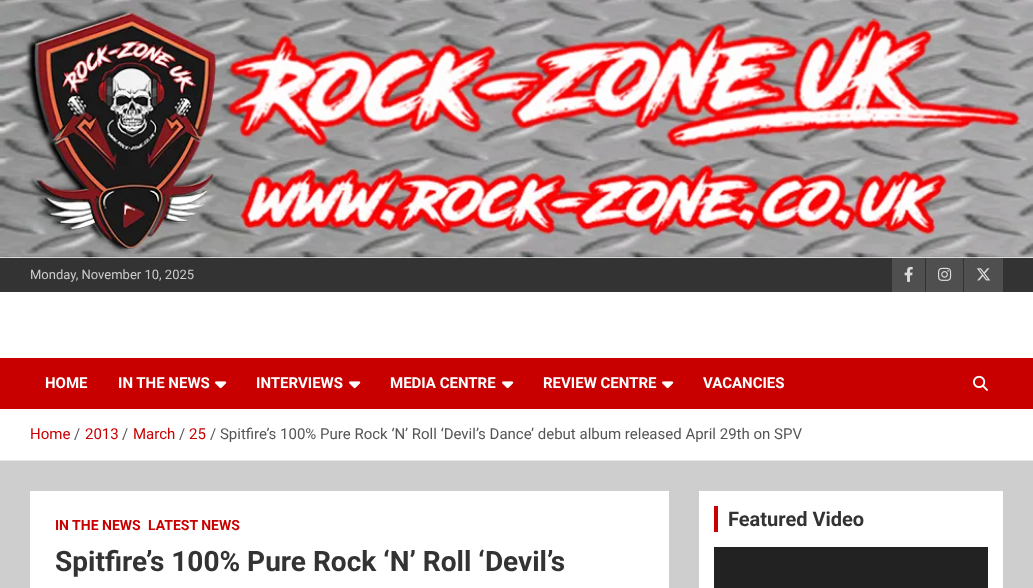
(async () => {
    const canvas = document.querySelector("canvas");
    canvas.width = 1033;
    canvas.height = 588;
    const context = canvas.getContext("2d");
    context.miterLimit = 4;
    context.fontKerning = "normal";
    function write(s, x, y, font, color) {
        context.font = font;
        context.fillStyle = color;
        context.fillText(s, x, y);
    }
    function block(x, y, w, h, color) {
        context.fillStyle = color;
        context.fillRect(x, y, w, h);
    }
    async function photo(src, x, y, w, h) {
        const img = new Image();
        img.src = src;
        await img.decode();
        context.drawImage(img, x, y, w, h);
    }

    block(0, 0, 1033, 588, "rgb(206, 206, 206)");
    await photo("media/1.png", 0, 0, 1033, 258);
    block(0, 258, 1033, 34, "rgb(51, 51, 51)");
    write("Monday, November 10, 2025", 30, 279, "13px Roboto", "rgb(204, 204, 204)");
    block(892, 258, 33, 34, "rgb(79, 79, 79)");
    await photo("media/2.png", 904, 266, 9, 16);
    block(926, 258, 37, 34, "rgb(79, 79, 79)");
    await photo("media/3.png", 938, 267, 14, 14);
    block(964, 258, 39, 34, "rgb(79, 79, 79)");
    await photo("media/4.png", 976, 268, 15, 13);
    block(0, 292, 1033, 66, "rgb(255, 255, 255)");
    block(0, 358, 1033, 51, "rgb(200, 0, 0)");
    write("HOME", 45, 388, "bold 15px Roboto", "rgb(255, 255, 255)");
    write("IN THE NEWS", 118, 388, "bold 15px Roboto", "rgb(255, 255, 255)");
    await photo("media/5.png", 215, 381, 12, 8);
    write("INTERVIEWS", 256, 388, "bold 15px Roboto", "rgb(255, 255, 255)");
    await photo("media/5.png", 349, 381, 12, 8);
    write("MEDIA CENTRE", 390, 388, "bold 15px Roboto", "rgb(255, 255, 255)");
    await photo("media/5.png", 502, 381, 12, 8);
    write("REVIEW CENTRE", 543, 388, "bold 15px Roboto", "rgb(255, 255, 255)");
    await photo("media/5.png", 662, 381, 12, 8);
    write("VACANCIES", 703, 388, "bold 15px Roboto", "rgb(255, 255, 255)");
    await photo("media/6.png", 973, 375, 15, 16);
    block(0, 409, 1033, 51, "rgb(255, 255, 255)");
    block(0, 460, 1033, 1, "rgb(230, 230, 230)");
    write("Home", 30, 439, "15px Roboto", "rgb(200, 0, 0)");
    write("/", 74, 439, "15px Roboto", "rgb(85, 85, 85)");
    write("2013", 85, 439, "15px Roboto", "rgb(200, 0, 0)");
    write("/", 122, 439, "15px Roboto", "rgb(85, 85, 85)");
    write("March", 133, 439, "15px Roboto", "rgb(200, 0, 0)");
    write("/", 179, 439, "15px Roboto", "rgb(85, 85, 85)");
    write("25", 189, 439, "15px Roboto", "rgb(200, 0, 0)");
    write("/ Spitfire’s 100% Pure Rock ‘N’ Roll ‘Devil’s Dance’ debut album released April 29th on SPV", 210, 439, "15px Roboto", "rgb(85, 85, 85)");
    block(30, 491, 639, 97, "rgb(255, 255, 255)");
    write("IN THE NEWS", 55, 530, "bold 14px Roboto", "rgb(200, 0, 0)");
    write("LATEST NEWS", 148, 530, "bold 14px Roboto", "rgb(200, 0, 0)");
    write("Spitfire’s 100% Pure Rock ‘N’ Roll ‘Devil’s", 55, 571, "bold 28px Roboto", "rgb(51, 51, 51)");
    block(699, 491, 304, 97, "rgb(255, 255, 255)");
    block(714, 506, 4, 26, "rgb(200, 0, 0)");
    write("Featured Video", 728, 526, "bold 20px Roboto", "rgb(51, 51, 51)");
    block(714, 547, 274, 41, "rgb(34, 34, 34)");
})();
